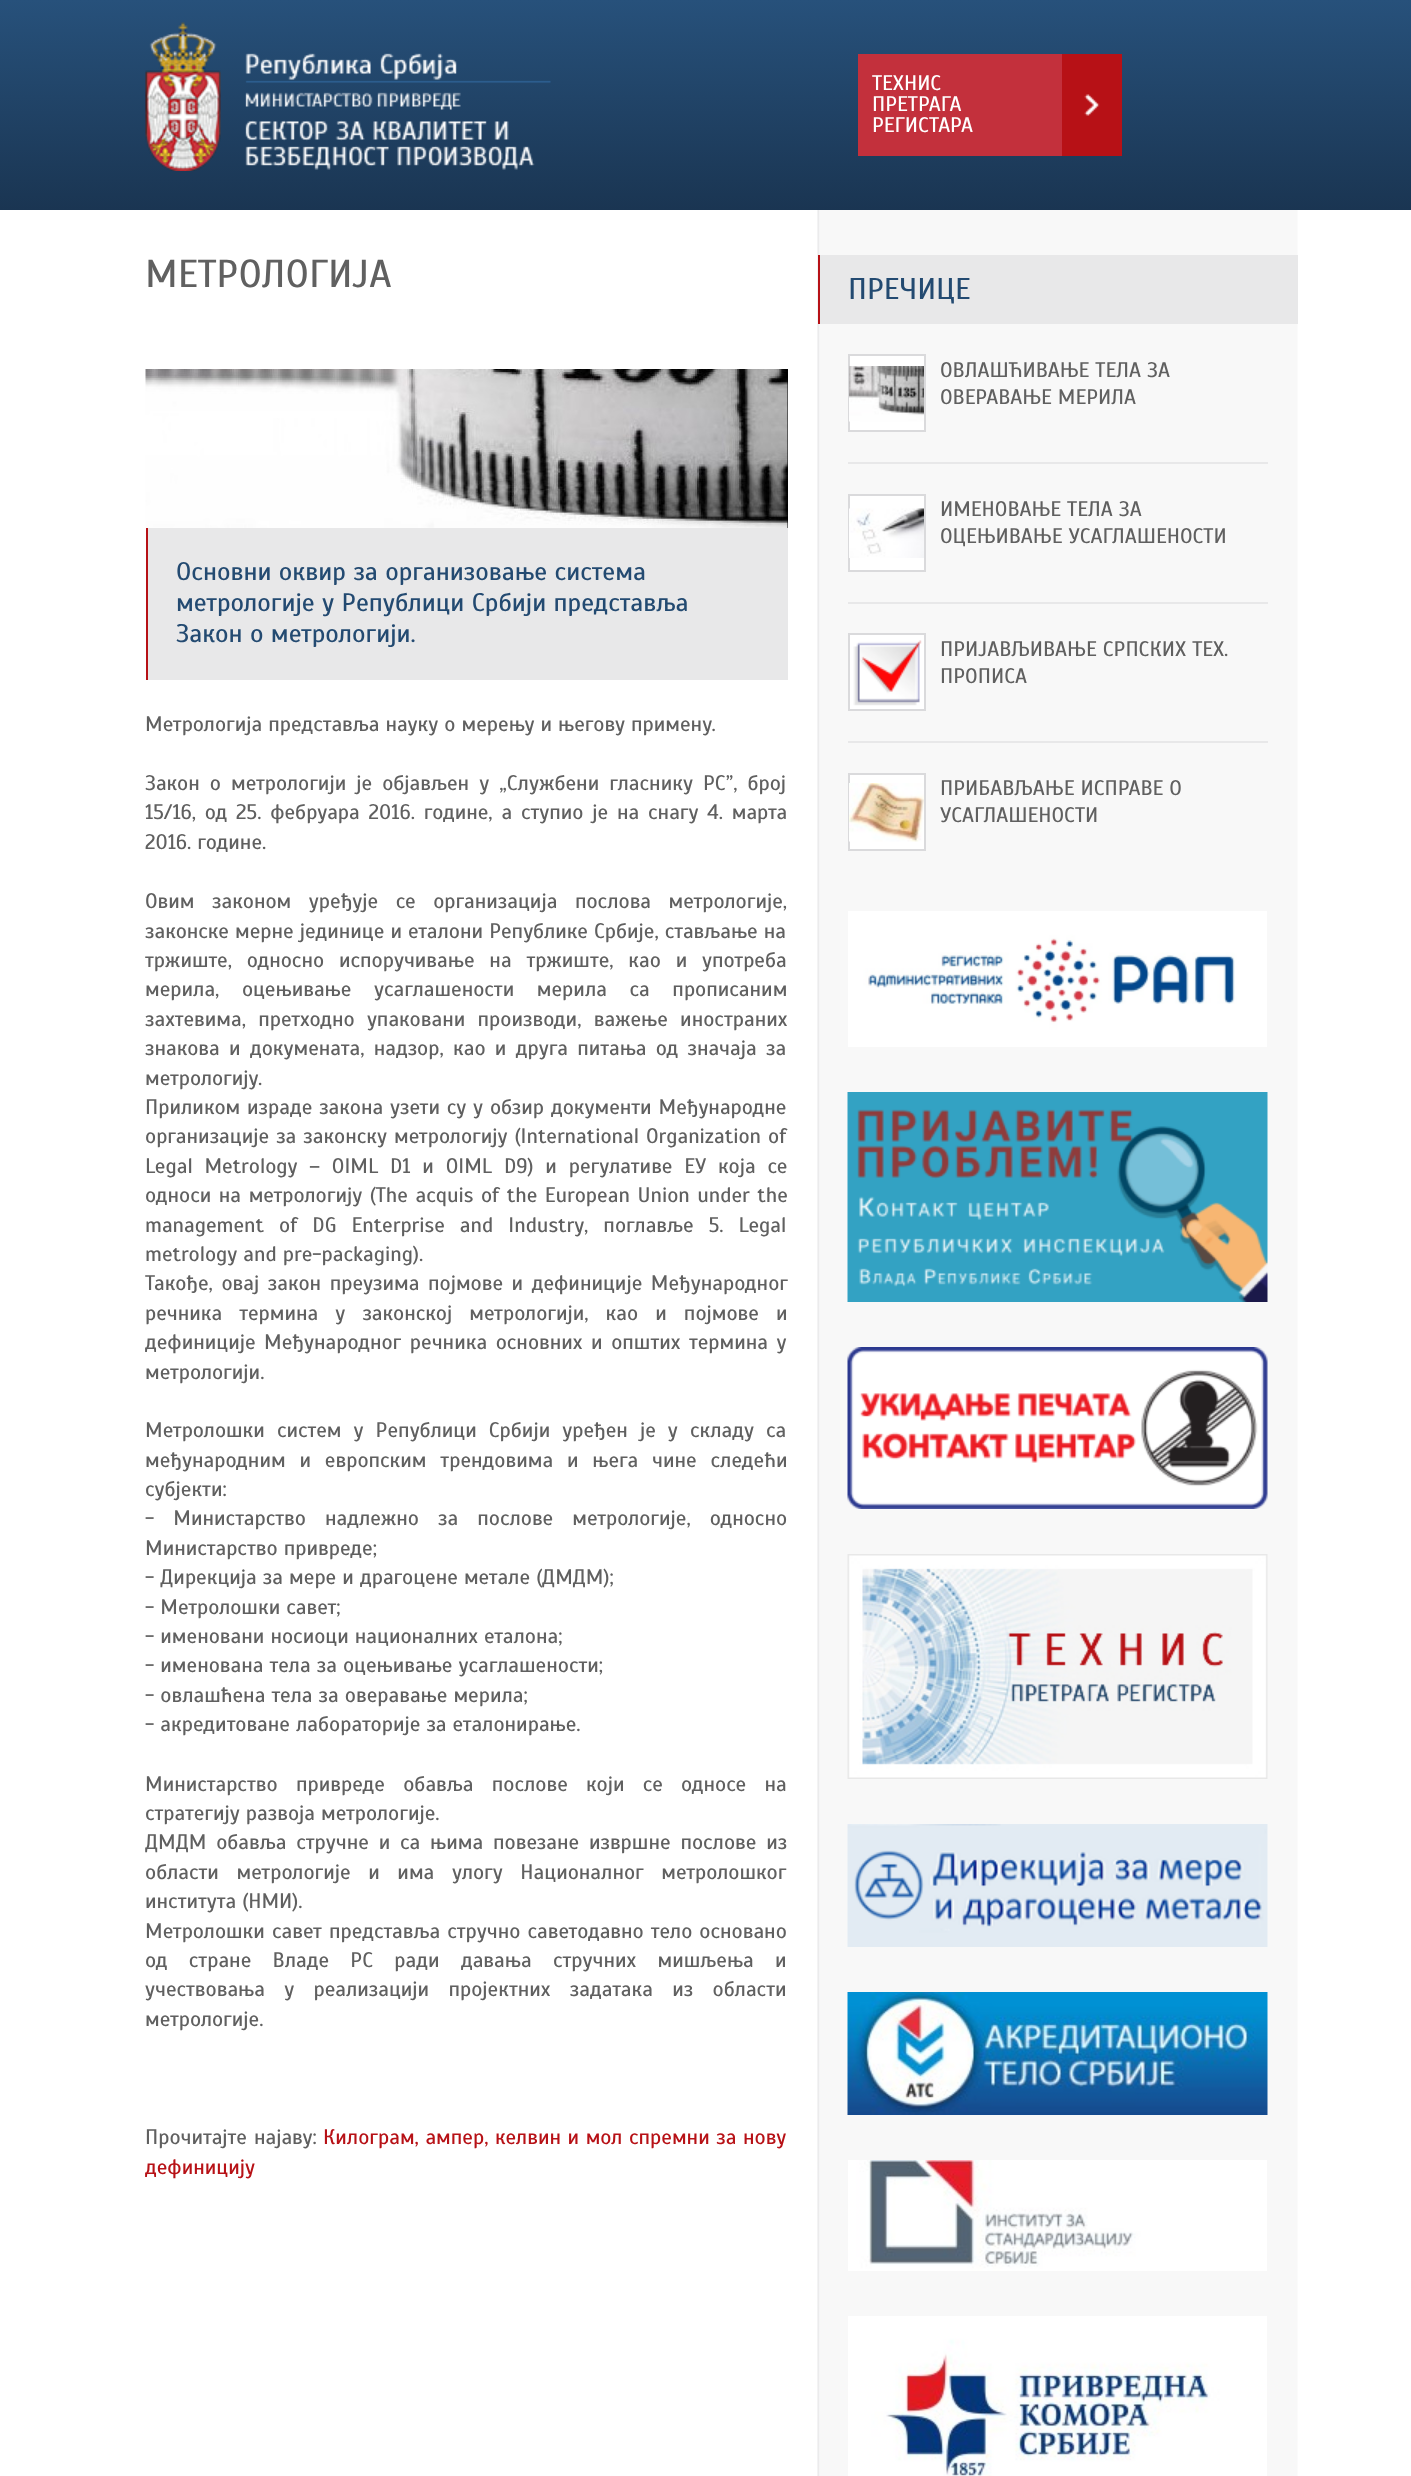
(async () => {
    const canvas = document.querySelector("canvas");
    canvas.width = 1411;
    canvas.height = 2476;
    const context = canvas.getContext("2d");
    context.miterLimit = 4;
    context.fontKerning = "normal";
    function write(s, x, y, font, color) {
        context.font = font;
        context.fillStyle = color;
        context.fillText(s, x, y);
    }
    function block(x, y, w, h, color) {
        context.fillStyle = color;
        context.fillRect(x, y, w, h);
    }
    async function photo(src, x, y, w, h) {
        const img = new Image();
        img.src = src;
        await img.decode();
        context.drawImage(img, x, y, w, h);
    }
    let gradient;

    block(0, 0, 1411, 2476, "rgb(255, 255, 255)");
    gradient = context.createLinearGradient(706, 0, 706, 210);
    gradient.addColorStop(0, "rgb(39, 81, 123)");
    gradient.addColorStop(1, "rgb(26, 53, 82)");
    context.fillStyle = gradient;
    context.fillRect(0, 0, 1411, 210);
    await photo("media/1.png", 145, 22, 406, 149);
    block(858, 54, 204, 102, "rgb(195, 48, 60)");
    await photo("media/2.png", 1062, 54, 60, 102);
    write("ТЕХНИС", 872, 90, "21px Scada", "rgb(255, 255, 255)");
    write("ПРЕТРАГА", 872, 111, "21px Scada", "rgb(255, 255, 255)");
    write("РЕГИСТАРА", 872, 132, "21px Scada", "rgb(255, 255, 255)");
    await photo("media/3.png", 817, 210, 481, 2266);
    write("МЕТРОЛОГИЈА", 145, 287, "39px Scada", "rgb(96, 96, 96)");
    block(787, 369, 1, 159, "rgb(0, 0, 0)");
    await photo("media/4.png", 145, 369, 643, 159);
    block(148, 528, 640, 152, "rgb(232, 232, 233)");
    block(146, 528, 2, 152, "rgb(183, 17, 22)");
    write("Основни оквир за организовање система", 176, 580, "25.5px Scada", "rgb(35, 74, 113)");
    write("метрологије у Републици Србији представља", 176, 611, "25.5px Scada", "rgb(35, 74, 113)");
    write("Закон о метрологији.", 176, 642, "25.5px Scada", "rgb(35, 74, 113)");
    write("Метрологија представља науку о мерењу и његову примену.", 145, 731, "21px Scada", "rgb(96, 96, 96)");
    context.wordSpacing = "4px";
    write("Закон о метрологији је објављен у „Службени гласнику РС”, број", 145, 790, "21px Scada", "rgb(96, 96, 96)");
    context.wordSpacing = "2.75px";
    write("15/16, од 25. фебруара 2016. године, а ступио је на снагу 4. марта", 145, 819, "21px Scada", "rgb(96, 96, 96)");
    context.wordSpacing = "0px";
    write("2016. године.", 145, 849, "21px Scada", "rgb(96, 96, 96)");
    context.wordSpacing = "11.5px";
    write("Овим законом уређује се организација послова метрологије,", 145, 908, "21px Scada", "rgb(96, 96, 96)");
    context.wordSpacing = "0px";
    write("законске мерне јединице и еталони Републике Србије, стављање на", 145, 938, "21px Scada", "rgb(96, 96, 96)");
    context.wordSpacing = "8.75px";
    write("тржиште, односно испоручивање на тржиштe, као и употреба", 145, 967, "21px Scada", "rgb(96, 96, 96)");
    context.wordSpacing = "16.5px";
    write("мерила, оцењивање усаглашености мерила са прописаним", 145, 996, "21px Scada", "rgb(96, 96, 96)");
    context.wordSpacing = "6.25px";
    write("захтевима, претходно упаковани производи, важење иностраних", 145, 1026, "21px Scada", "rgb(96, 96, 96)");
    context.wordSpacing = "3.25px";
    write("знакова и докумената, надзор, као и друга питања од значаја за", 145, 1055, "21px Scada", "rgb(96, 96, 96)");
    context.wordSpacing = "0px";
    write("метрологију.", 145, 1085, "21px Scada", "rgb(96, 96, 96)");
    context.wordSpacing = "0.75px";
    write("Приликом израде закона узети су у обзир документи Међународне", 145, 1114, "21px Scada", "rgb(96, 96, 96)");
    context.wordSpacing = "1px";
    write("организације за законску метрологију (International Organization of", 145, 1143, "21px Scada", "rgb(96, 96, 96)");
    context.wordSpacing = "5.75px";
    write("Legal Metrology – ОIМL D1 и ОIМL D9) и регулативе EУ која се", 145, 1173, "21px Scada", "rgb(96, 96, 96)");
    context.wordSpacing = "1.5px";
    write("односи на метрологију (Тhe acquis of the Еuropean Union under the", 145, 1202, "21px Scada", "rgb(96, 96, 96)");
    context.wordSpacing = "9px";
    write("management of DG Enterprise and Industry, поглавље 5. Legal", 145, 1232, "21px Scada", "rgb(96, 96, 96)");
    context.wordSpacing = "0px";
    write("metrology and pre-packaging).", 145, 1261, "21px Scada", "rgb(96, 96, 96)");
    context.wordSpacing = "2.5px";
    write("Такође, овај закон преузима појмове и дефиниције Међународног", 145, 1290, "21px Scada", "rgb(96, 96, 96)");
    context.wordSpacing = "11px";
    write("речника термина у законској метрологији, као и појмове и", 145, 1320, "21px Scada", "rgb(96, 96, 96)");
    context.wordSpacing = "2.5px";
    write("дефиниције Међународног речника основних и општих термина у", 145, 1349, "21px Scada", "rgb(96, 96, 96)");
    context.wordSpacing = "0px";
    write("метрологији.", 145, 1379, "21px Scada", "rgb(96, 96, 96)");
    context.wordSpacing = "6px";
    write("Метролошки систем у Републици Србији уређен је у складу са", 145, 1437, "21px Scada", "rgb(96, 96, 96)");
    context.wordSpacing = "7.75px";
    write("међународним и европским трендовима и њега чине следећи", 145, 1467, "21px Scada", "rgb(96, 96, 96)");
    context.wordSpacing = "0px";
    write("субјекти:", 145, 1496, "21px Scada", "rgb(96, 96, 96)");
    context.wordSpacing = "13px";
    write("- Министарство надлежно за послове метрологије, односно", 145, 1525, "21px Scada", "rgb(96, 96, 96)");
    context.wordSpacing = "0px";
    write("Министарство привреде;", 145, 1555, "21px Scada", "rgb(96, 96, 96)");
    write("- Дирекција за мере и драгоцене метале (ДМДМ);", 145, 1584, "21px Scada", "rgb(96, 96, 96)");
    write("- Метролошки савет;", 145, 1614, "21px Scada", "rgb(96, 96, 96)");
    write("- именовани носиоци националних еталона;", 145, 1643, "21px Scada", "rgb(96, 96, 96)");
    write("- именована тела за оцењивање усаглашености;", 145, 1672, "21px Scada", "rgb(96, 96, 96)");
    write("- овлашћена тела за оверавање мерила;", 145, 1702, "21px Scada", "rgb(96, 96, 96)");
    write("- акредитоване лабораторије за еталонирање.", 145, 1731, "21px Scada", "rgb(96, 96, 96)");
    context.wordSpacing = "12.25px";
    write("Министарство привреде обавља послове који се односе на", 145, 1791, "21px Scada", "rgb(96, 96, 96)");
    context.wordSpacing = "0px";
    write("стратегију развоја метрологије.", 145, 1820, "21px Scada", "rgb(96, 96, 96)");
    context.wordSpacing = "3.75px";
    write("ДМДМ обавља стручне и са њима повезане извршне послове из", 145, 1849, "21px Scada", "rgb(96, 96, 96)");
    context.wordSpacing = "11.5px";
    write("области метрологије и има улогу Националног метролошког", 145, 1879, "21px Scada", "rgb(96, 96, 96)");
    context.wordSpacing = "0px";
    write("института (НМИ).", 145, 1908, "21px Scada", "rgb(96, 96, 96)");
    context.wordSpacing = "1px";
    write("Метролошки савет представља стручно саветодавно тело основано", 145, 1938, "21px Scada", "rgb(96, 96, 96)");
    context.wordSpacing = "15.25px";
    write("од стране Владе РС ради давања стручних мишљења и", 145, 1967, "21px Scada", "rgb(96, 96, 96)");
    context.wordSpacing = "13.25px";
    write("учествовања у реализацији пројектних задатака из области", 145, 1996, "21px Scada", "rgb(96, 96, 96)");
    context.wordSpacing = "0px";
    write("метрологије.", 145, 2026, "21px Scada", "rgb(96, 96, 96)");
    context.wordSpacing = "1px";
    write("Прочитајте најаву:", 145, 2144, "21px Scada", "rgb(96, 96, 96)");
    context.wordSpacing = "0.5px";
    write("Килограм, ампер, келвин и мол спремни за нову", 323, 2144, "21px Scada", "rgb(183, 17, 22)");
    context.wordSpacing = "0px";
    write("дефиницију", 145, 2174, "21px Scada", "rgb(183, 17, 22)");
    block(820, 255, 478, 69, "rgb(232, 232, 233)");
    block(818, 255, 2, 69, "rgb(183, 17, 22)");
    write("ПРЕЧИЦЕ", 848, 299, "30px Scada", "rgb(35, 74, 113)");
    block(848, 462, 420, 2, "rgb(232, 232, 233)");
    context.fillStyle = "rgb(255, 255, 255)";
    context.beginPath();
    context.rect(849, 355, 76, 76);
    context.fill();
    context.strokeStyle = "rgb(218, 218, 220)";
    context.lineWidth = 2;
    context.stroke();
    await photo("media/5.png", 849, 366, 75, 56);
    write("ОВЛАШЋИВАЊЕ ТЕЛА ЗА", 940, 377, "21px Scada", "rgb(96, 96, 96)");
    write("ОВЕРАВАЊЕ МЕРИЛА", 940, 404, "21px Scada", "rgb(96, 96, 96)");
    block(848, 602, 420, 2, "rgb(232, 232, 233)");
    context.fillStyle = "rgb(255, 255, 255)";
    context.beginPath();
    context.rect(849, 495, 76, 76);
    context.fill();
    context.stroke();
    await photo("media/6.png", 849, 508, 75, 50);
    write("ИМЕНОВАЊЕ ТЕЛА ЗА", 940, 516, "21px Scada", "rgb(96, 96, 96)");
    write("ОЦЕЊИВАЊЕ УСАГЛАШЕНОСТИ", 940, 543, "21px Scada", "rgb(96, 96, 96)");
    block(848, 741, 420, 2, "rgb(232, 232, 233)");
    context.fillStyle = "rgb(255, 255, 255)";
    context.beginPath();
    context.rect(849, 634, 76, 76);
    context.fill();
    context.stroke();
    await photo("media/7.png", 853, 640, 69, 66);
    write("ПРИЈАВЉИВАЊЕ СРПСКИХ ТЕХ.", 940, 656, "21px Scada", "rgb(96, 96, 96)");
    write("ПРОПИСА", 940, 683, "21px Scada", "rgb(96, 96, 96)");
    context.fillStyle = "rgb(255, 255, 255)";
    context.beginPath();
    context.rect(849, 774, 76, 76);
    context.fill();
    context.stroke();
    await photo("media/8.png", 849, 783, 75, 59);
    write("ПРИБАВЉАЊЕ ИСПРАВЕ О", 940, 795, "21px Scada", "rgb(96, 96, 96)");
    write("УСАГЛАШЕНОСТИ", 940, 822, "21px Scada", "rgb(96, 96, 96)");
    await photo("media/9.png", 848, 911, 419, 136);
    await photo("media/10.png", 847, 1092, 421, 210);
    await photo("media/11.png", 847, 1347, 421, 162);
    await photo("media/12.png", 847, 1554, 421, 225);
    await photo("media/13.png", 847, 1824, 421, 123);
    await photo("media/14.png", 847, 1992, 421, 123);
    await photo("media/15.png", 848, 2160, 419, 111);
    await photo("media/16.png", 848, 2316, 419, 160);
})();
